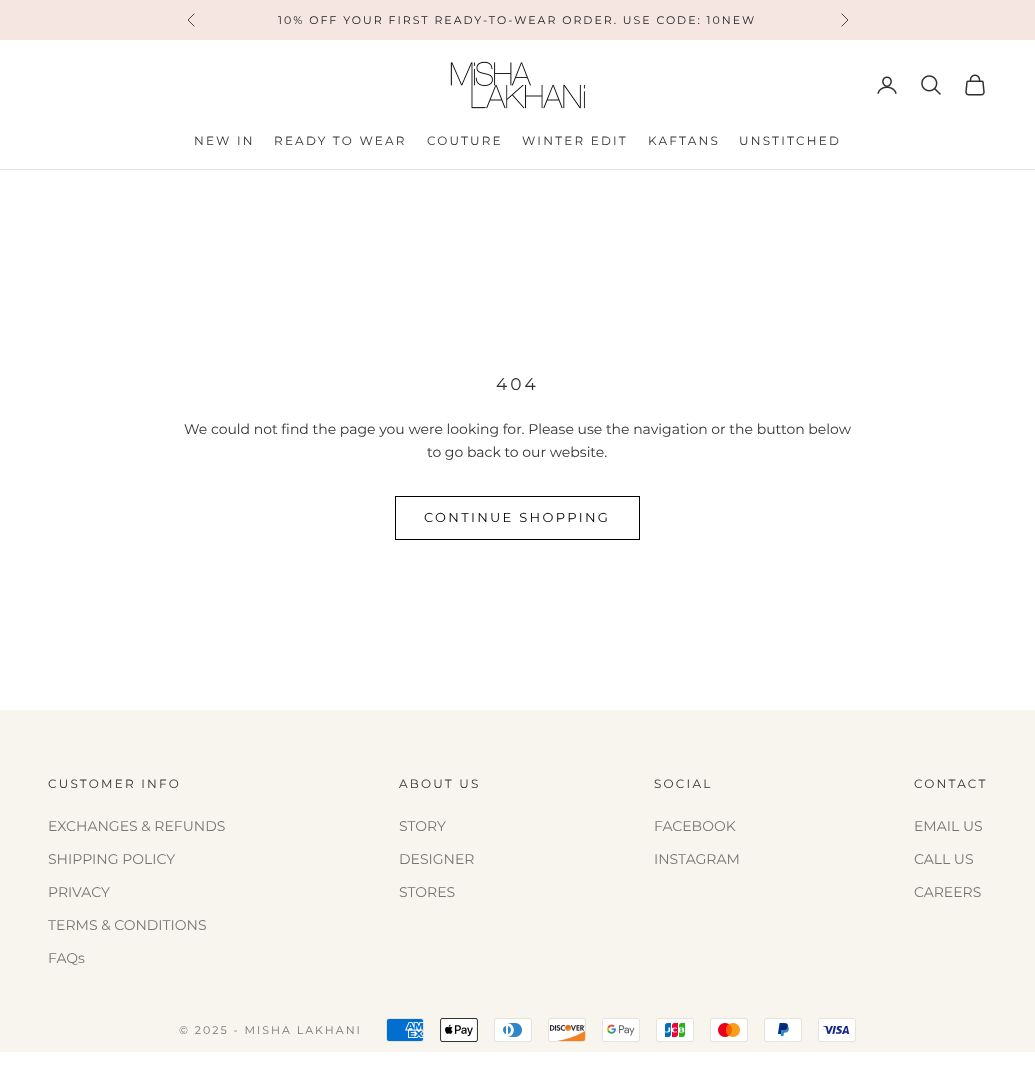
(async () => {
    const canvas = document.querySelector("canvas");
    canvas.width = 1035;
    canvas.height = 1081;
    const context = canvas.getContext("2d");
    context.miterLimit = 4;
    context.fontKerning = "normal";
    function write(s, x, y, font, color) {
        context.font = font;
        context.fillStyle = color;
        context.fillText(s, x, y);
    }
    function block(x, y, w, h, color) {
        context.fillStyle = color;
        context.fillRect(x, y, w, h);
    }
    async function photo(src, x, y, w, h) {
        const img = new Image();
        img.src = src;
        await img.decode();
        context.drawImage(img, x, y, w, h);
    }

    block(0, 0, 1035, 1081, "rgb(255, 255, 255)");
    block(0, 0, 1035, 40, "rgb(245, 230, 225)");
    context.beginPath();
    context.moveTo(194, 14);
    context.lineTo(188, 20);
    context.lineTo(194, 26);
    context.strokeStyle = "rgb(28, 28, 28)";
    context.lineWidth = 0.8;
    context.lineCap = "square";
    context.stroke();
    context.letterSpacing = "1.98px";
    write("10% OFF YOUR FIRST READY-TO-WEAR ORDER. USE CODE: 10NEW", 278, 24, "11px Montserrat", "rgb(28, 28, 28)");
    context.beginPath();
    context.moveTo(842, 26);
    context.lineTo(848, 20);
    context.lineTo(842, 14);
    context.stroke();
    block(0, 169, 1035, 1, "rgb(224, 224, 224)");
    await photo("media/1.png", 450, 61, 135, 48);
    await photo("media/2.png", 877, 76, 20, 18);
    await photo("media/3.png", 921, 75, 20, 20);
    await photo("media/4.png", 965, 74, 20, 22);
    context.letterSpacing = "2.2px";
    write("NEW IN", 194, 145, "12px Montserrat", "rgb(48, 48, 48)");
    write("READY TO WEAR", 274, 145, "12px Montserrat", "rgb(48, 48, 48)");
    write("COUTURE", 427, 145, "12px Montserrat", "rgb(48, 48, 48)");
    write("WINTER EDIT", 522, 145, "12px Montserrat", "rgb(48, 48, 48)");
    write("KAFTANS", 648, 145, "12px Montserrat", "rgb(48, 48, 48)");
    write("UNSTITCHED", 739, 145, "12px Montserrat", "rgb(48, 48, 48)");
    context.letterSpacing = "3px";
    write("404", 496, 390, "17px Montserrat", "rgb(48, 48, 48)");
    context.letterSpacing = "0px";
    write("We could not find the page you were looking for. Please use the navigation or the button below", 184, 434, "14px Montserrat", "rgb(48, 48, 48)");
    write("to go back to our website.", 427, 457, "14px Montserrat", "rgb(48, 48, 48)");
    context.strokeStyle = "rgb(0, 0, 0)";
    context.lineWidth = 1;
    context.strokeRect(395.5, 496.5, 244, 43);
    context.letterSpacing = "2.3px";
    write("CONTINUE SHOPPING", 424, 522, "13px Montserrat", "rgb(0, 0, 0)");
    block(0, 710, 1035, 342, "rgb(247, 245, 238)");
    context.letterSpacing = "2.2px";
    write("CUSTOMER INFO", 48, 788, "12px Montserrat", "rgb(48, 48, 48)");
    context.letterSpacing = "0px";
    write("EXCHANGES & REFUNDS", 48, 831, "14px Montserrat", "rgb(118, 117, 115)");
    write("SHIPPING POLICY", 48, 864, "14px Montserrat", "rgb(118, 117, 115)");
    write("PRIVACY", 48, 897, "14px Montserrat", "rgb(118, 117, 115)");
    write("TERMS & CONDITIONS", 48, 930, "14px Montserrat", "rgb(118, 117, 115)");
    write("FAQs", 48, 963, "14px Montserrat", "rgb(118, 117, 115)");
    context.letterSpacing = "2.2px";
    write("ABOUT US", 399, 788, "12px Montserrat", "rgb(48, 48, 48)");
    context.letterSpacing = "0px";
    write("STORY", 399, 831, "14px Montserrat", "rgb(118, 117, 115)");
    write("DESIGNER", 399, 864, "14px Montserrat", "rgb(118, 117, 115)");
    write("STORES", 399, 897, "14px Montserrat", "rgb(118, 117, 115)");
    context.letterSpacing = "2.2px";
    write("SOCIAL", 654, 788, "12px Montserrat", "rgb(48, 48, 48)");
    context.letterSpacing = "0px";
    write("FACEBOOK", 654, 831, "14px Montserrat", "rgb(118, 117, 115)");
    write("INSTAGRAM", 654, 864, "14px Montserrat", "rgb(118, 117, 115)");
    context.letterSpacing = "2.2px";
    write("CONTACT", 914, 788, "12px Montserrat", "rgb(48, 48, 48)");
    context.letterSpacing = "0px";
    write("EMAIL US", 914, 831, "14px Montserrat", "rgb(118, 117, 115)");
    write("CALL US", 914, 864, "14px Montserrat", "rgb(118, 117, 115)");
    write("CAREERS", 914, 897, "14px Montserrat", "rgb(118, 117, 115)");
    context.letterSpacing = "1.98px";
    write("© 2025 - MISHA LAKHANI", 179, 1034, "11px Montserrat", "rgb(118, 117, 115)");
    await photo("media/5.png", 386, 1018, 38, 24);
    await photo("media/6.png", 440, 1018, 38, 24);
    await photo("media/7.png", 494, 1018, 38, 24);
    await photo("media/8.png", 548, 1018, 38, 24);
    await photo("media/9.png", 602, 1018, 38, 24);
    await photo("media/10.png", 656, 1018, 38, 24);
    await photo("media/11.png", 710, 1018, 38, 24);
    await photo("media/12.png", 764, 1018, 38, 24);
    await photo("media/13.png", 818, 1018, 38, 24);
})();
